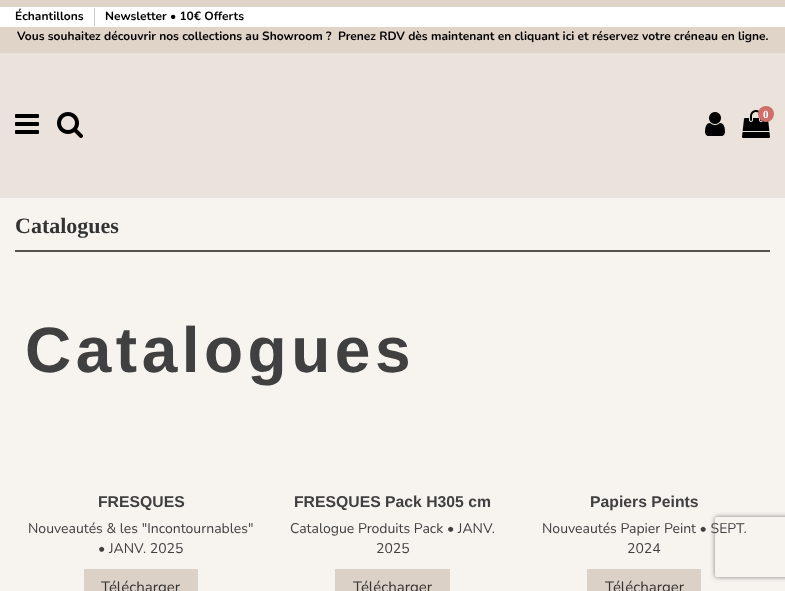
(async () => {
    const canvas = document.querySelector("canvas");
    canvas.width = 785;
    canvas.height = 591;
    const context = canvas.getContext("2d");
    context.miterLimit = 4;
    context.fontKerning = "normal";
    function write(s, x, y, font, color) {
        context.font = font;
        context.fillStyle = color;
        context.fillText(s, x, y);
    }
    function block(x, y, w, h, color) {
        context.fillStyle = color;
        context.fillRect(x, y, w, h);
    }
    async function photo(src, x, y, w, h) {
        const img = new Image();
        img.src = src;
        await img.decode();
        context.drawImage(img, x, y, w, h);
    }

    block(0, 0, 785, 591, "rgb(247, 244, 240)");
    block(0, 53, 785, 144, "rgb(235, 227, 219)");
    block(0, 0, 785, 53, "rgb(224, 211, 199)");
    block(0, 7, 785, 20, "rgb(255, 255, 255)");
    write("Échantillons", 15, 20, "bold 12px Nunito", "rgb(0, 0, 0)");
    block(94, 8, 1, 18, "rgb(204, 204, 204)");
    write("Newsletter • 10€ Offerts", 105, 20, "bold 12px Nunito", "rgb(0, 0, 0)");
    write("Vous souhaitez découvrir nos collections au Showroom ?", 17, 40, "bold 12px Nunito", "rgb(0, 0, 0)");
    write("Prenez RDV dès maintenant en cliquant ici et réservez votre créneau en ligne.", 338, 40, "bold 12px Nunito", "rgb(0, 0, 0)");
    block(0, 197, 785, 1, "rgb(227, 227, 227)");
    await photo("media/1.png", 15, 114, 24, 20);
    await photo("media/2.png", 57, 112, 26, 26);
    await photo("media/3.png", 705, 112, 20, 24);
    await photo("media/4.png", 742, 110, 28, 28);
    context.fillStyle = "rgb(208, 110, 106)";
    context.beginPath();
    context.arc(766, 114, 8, 0, Math.PI * 2);
    context.fill();
    write("0", 763, 118, "bold 11px Liberation Serif", "rgb(255, 255, 255)");
    block(15, 250, 755, 2, "rgb(89, 80, 80)");
    write("Catalogues", 15, 233, "bold 22px Liberation Serif", "rgb(51, 51, 51)");
    context.letterSpacing = "4.5px";
    write("Catalogues", 25, 372, "bold 64px Liberation Sans", "rgb(64, 64, 64)");
    context.letterSpacing = "0px";
    write("FRESQUES", 98, 507, "bold 15.75px Liberation Sans", "rgb(64, 64, 64)");
    write("Nouveautés & les \"Incontournables\"", 28, 533, "14px Nunito", "rgb(64, 64, 64)");
    write("• JANV. 2025", 98, 553, "14px Nunito", "rgb(64, 64, 64)");
    block(84, 569, 114, 22, "rgb(220, 209, 198)");
    write("Télécharger", 101, 592, "15px Nunito", "rgb(51, 51, 51)");
    write("FRESQUES Pack H305 cm", 294, 507, "bold 15.75px Liberation Sans", "rgb(64, 64, 64)");
    write("Catalogue Produits Pack • JANV.", 290, 533, "14px Nunito", "rgb(64, 64, 64)");
    write("2025", 376, 553, "14px Nunito", "rgb(64, 64, 64)");
    block(335, 569, 115, 22, "rgb(220, 209, 198)");
    write("Télécharger", 353, 592, "15px Nunito", "rgb(51, 51, 51)");
    write("Papiers Peints", 590, 507, "bold 15.75px Liberation Sans", "rgb(64, 64, 64)");
    write("Nouveautés Papier Peint • SEPT.", 542, 533, "14px Nunito", "rgb(64, 64, 64)");
    write("2024", 627, 553, "14px Nunito", "rgb(64, 64, 64)");
    block(587, 569, 114, 22, "rgb(220, 209, 198)");
    write("Télécharger", 605, 592, "15px Nunito", "rgb(51, 51, 51)");
    context.save();
    context.beginPath();
    context.moveTo(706, 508);
    context.lineTo(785, 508);
    context.lineTo(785, 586);
    context.lineTo(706, 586);
    context.closePath();
    context.moveTo(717, 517);
    context.lineTo(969, 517);
    context.bezierCurveTo(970, 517, 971, 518, 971, 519);
    context.lineTo(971, 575);
    context.bezierCurveTo(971, 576, 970, 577, 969, 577);
    context.lineTo(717, 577);
    context.bezierCurveTo(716, 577, 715, 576, 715, 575);
    context.lineTo(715, 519);
    context.bezierCurveTo(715, 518, 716, 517, 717, 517);
    context.closePath();
    context.clip("evenodd");
    context.fillStyle = "rgb(128, 128, 128)";
    context.filter = "blur(2.5px)";
    context.beginPath();
    context.roundRect(715, 517, 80, 60, 2);
    context.fill();
    context.filter = "none";
    context.restore();
})();
